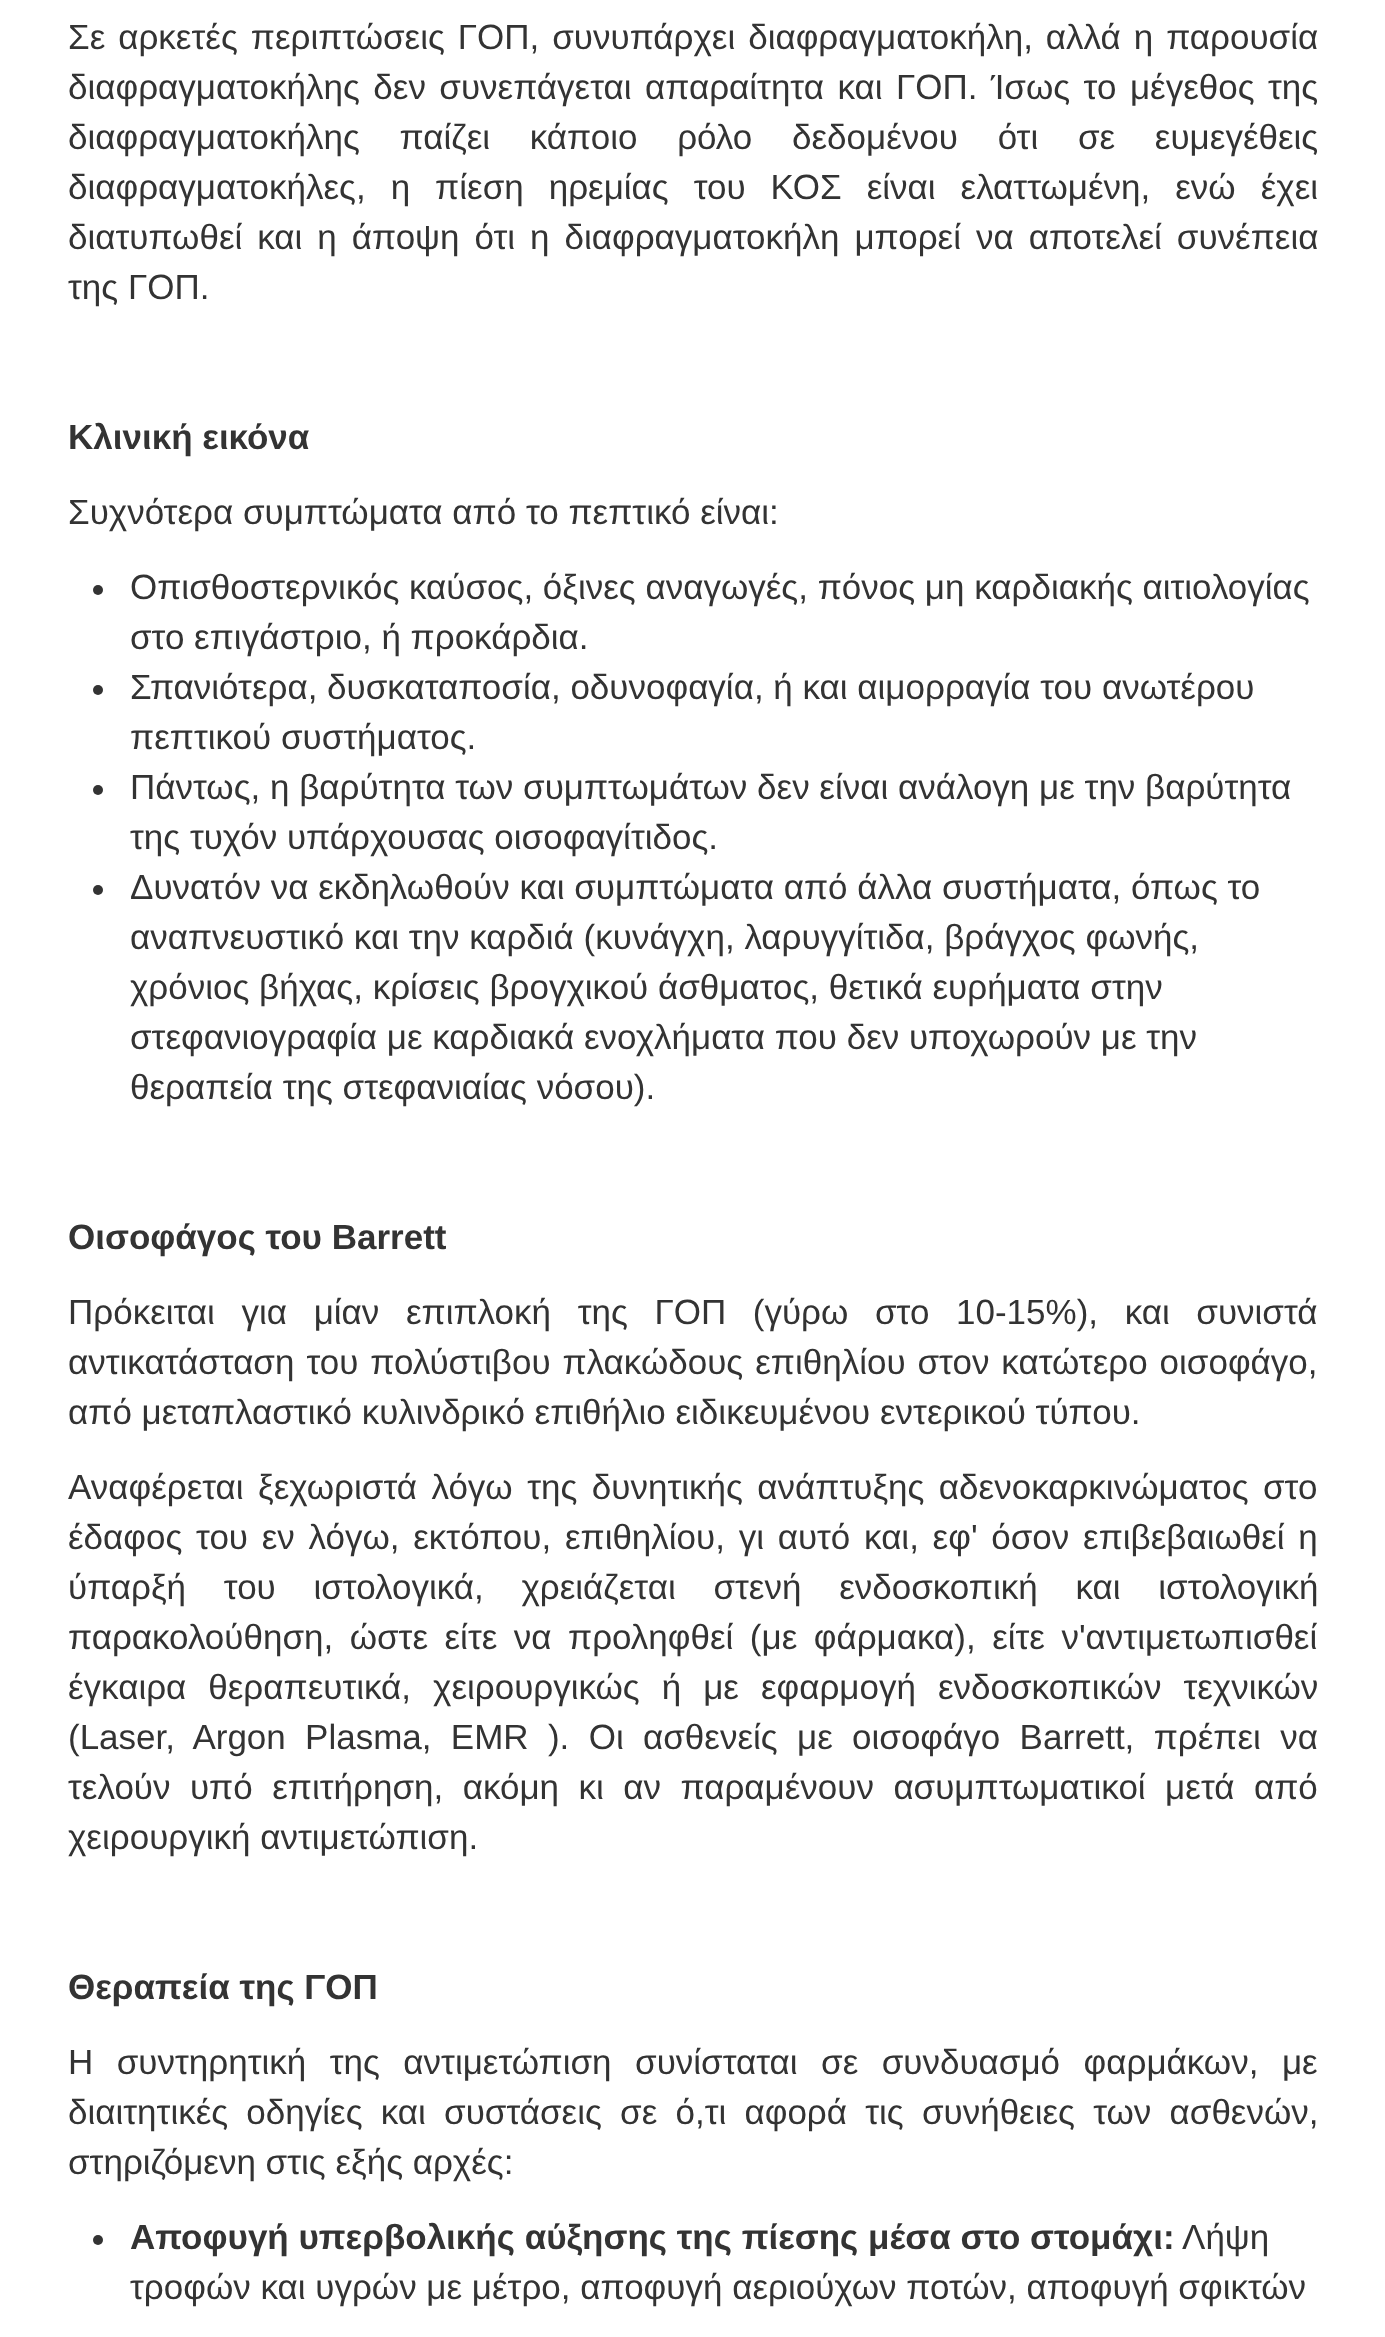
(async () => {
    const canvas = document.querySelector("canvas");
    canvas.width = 1385;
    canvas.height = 2337;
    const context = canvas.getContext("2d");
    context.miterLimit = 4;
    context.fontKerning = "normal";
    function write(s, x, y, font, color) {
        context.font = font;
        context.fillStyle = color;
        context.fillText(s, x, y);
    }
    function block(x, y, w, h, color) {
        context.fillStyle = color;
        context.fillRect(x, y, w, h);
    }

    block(0, 0, 1385, 2337, "rgb(255, 255, 255)");
    context.wordSpacing = "3.25px";
    write("Σε αρκετές περιπτώσεις ΓΟΠ, συνυπάρχει διαφραγματοκήλη, αλλά η παρουσία", 68, 49, "35px Liberation Sans", "rgb(51, 51, 51)");
    context.wordSpacing = "3.75px";
    write("διαφραγματοκήλης δεν συνεπάγεται απαραίτητα και ΓΟΠ. Ίσως το μέγεθος της", 68, 99, "35px Liberation Sans", "rgb(51, 51, 51)");
    context.wordSpacing = "30px";
    write("διαφραγματοκήλης παίζει κάποιο ρόλο δεδομένου ότι σε ευμεγέθεις", 68, 149, "35px Liberation Sans", "rgb(51, 51, 51)");
    context.wordSpacing = "15.25px";
    write("διαφραγματοκήλες, η πίεση ηρεμίας του ΚΟΣ είναι ελαττωμένη, ενώ έχει", 68, 199, "35px Liberation Sans", "rgb(51, 51, 51)");
    context.wordSpacing = "5.25px";
    write("διατυπωθεί και η άποψη ότι η διαφραγματοκήλη μπορεί να αποτελεί συνέπεια", 68, 249, "35px Liberation Sans", "rgb(51, 51, 51)");
    context.wordSpacing = "0px";
    write("της ΓΟΠ.", 68, 299, "35px Liberation Sans", "rgb(51, 51, 51)");
    write("Κλινική εικόνα", 68, 449, "bold 35px Liberation Sans", "rgb(51, 51, 51)");
    write("Συχνότερα συμπτώματα από το πεπτικό είναι:", 68, 524, "35px Liberation Sans", "rgb(51, 51, 51)");
    context.beginPath();
    context.arc(98, 590, 5, 0, Math.PI * 2);
    context.fill();
    write("Οπισθοστερνικός καύσος, όξινες αναγωγές, πόνος μη καρδιακής αιτιολογίας", 130, 599, "35px Liberation Sans", "rgb(51, 51, 51)");
    write("στο επιγάστριο, ή προκάρδια.", 130, 649, "35px Liberation Sans", "rgb(51, 51, 51)");
    context.beginPath();
    context.arc(98, 690, 5, 0, Math.PI * 2);
    context.fill();
    write("Σπανιότερα, δυσκαταποσία, οδυνοφαγία, ή και αιμορραγία του ανωτέρου", 130, 699, "35px Liberation Sans", "rgb(51, 51, 51)");
    write("πεπτικού συστήματος.", 130, 749, "35px Liberation Sans", "rgb(51, 51, 51)");
    context.beginPath();
    context.arc(98, 790, 5, 0, Math.PI * 2);
    context.fill();
    write("Πάντως, η βαρύτητα των συμπτωμάτων δεν είναι ανάλογη με την βαρύτητα", 130, 799, "35px Liberation Sans", "rgb(51, 51, 51)");
    write("της τυχόν υπάρχουσας οισοφαγίτιδος.", 130, 849, "35px Liberation Sans", "rgb(51, 51, 51)");
    context.beginPath();
    context.arc(98, 890, 5, 0, Math.PI * 2);
    context.fill();
    write("Δυνατόν να εκδηλωθούν και συμπτώματα από άλλα συστήματα, όπως το", 130, 899, "35px Liberation Sans", "rgb(51, 51, 51)");
    write("αναπνευστικό και την καρδιά (κυνάγχη, λαρυγγίτιδα, βράγχος φωνής,", 130, 949, "35px Liberation Sans", "rgb(51, 51, 51)");
    write("χρόνιος βήχας, κρίσεις βρογχικού άσθματος, θετικά ευρήματα στην", 130, 999, "35px Liberation Sans", "rgb(51, 51, 51)");
    write("στεφανιογραφία με καρδιακά ενοχλήματα που δεν υποχωρούν με την", 130, 1049, "35px Liberation Sans", "rgb(51, 51, 51)");
    write("θεραπεία της στεφανιαίας νόσου).", 130, 1099, "35px Liberation Sans", "rgb(51, 51, 51)");
    write("Οισοφάγος του Barrett", 68, 1249, "bold 35px Liberation Sans", "rgb(51, 51, 51)");
    context.wordSpacing = "16.9px";
    write("Πρόκειται για μίαν επιπλοκή της ΓΟΠ (γύρω στο 10-15%), και συνιστά", 68, 1324, "35px Liberation Sans", "rgb(51, 51, 51)");
    context.wordSpacing = "2.25px";
    write("αντικατάσταση του πολύστιβου πλακώδους επιθηλίου στον κατώτερο οισοφάγο,", 68, 1374, "35px Liberation Sans", "rgb(51, 51, 51)");
    context.wordSpacing = "0px";
    write("από μεταπλαστικό κυλινδρικό επιθήλιο ειδικευμένου εντερικού τύπου.", 68, 1424, "35px Liberation Sans", "rgb(51, 51, 51)");
    context.wordSpacing = "4.75px";
    write("Αναφέρεται ξεχωριστά λόγω της δυνητικής ανάπτυξης αδενοκαρκινώματος στο", 68, 1499, "35px Liberation Sans", "rgb(51, 51, 51)");
    context.wordSpacing = "4px";
    write("έδαφος του εν λόγω, εκτόπου, επιθηλίου, γι αυτό και, εφ' όσον επιβεβαιωθεί η", 68, 1549, "35px Liberation Sans", "rgb(51, 51, 51)");
    context.wordSpacing = "28px";
    write("ύπαρξή του ιστολογικά, χρειάζεται στενή ενδοσκοπική και ιστολογική", 68, 1599, "35px Liberation Sans", "rgb(51, 51, 51)");
    context.wordSpacing = "6.75px";
    write("παρακολούθηση, ώστε είτε να προληφθεί (με φάρμακα), είτε ν'αντιμετωπισθεί", 68, 1649, "35px Liberation Sans", "rgb(51, 51, 51)");
    context.wordSpacing = "12.25px";
    write("έγκαιρα θεραπευτικά, χειρουργικώς ή με εφαρμογή ενδοσκοπικών τεχνικών", 68, 1699, "35px Liberation Sans", "rgb(51, 51, 51)");
    context.wordSpacing = "9.6px";
    write("(Laser, Argon Plasma, EMR ). Οι ασθενείς με οισοφάγο Barrett, πρέπει να", 68, 1749, "35px Liberation Sans", "rgb(51, 51, 51)");
    context.wordSpacing = "9.75px";
    write("τελούν υπό επιτήρηση, ακόμη κι αν παραμένουν ασυμπτωματικοί μετά από", 68, 1799, "35px Liberation Sans", "rgb(51, 51, 51)");
    context.wordSpacing = "0px";
    write("χειρουργική αντιμετώπιση.", 68, 1849, "35px Liberation Sans", "rgb(51, 51, 51)");
    write("Θεραπεία της ΓΟΠ", 68, 1999, "bold 35px Liberation Sans", "rgb(51, 51, 51)");
    context.wordSpacing = "13.75px";
    write("Η συντηρητική της αντιμετώπιση συνίσταται σε συνδυασμό φαρμάκων, με", 68, 2074, "35px Liberation Sans", "rgb(51, 51, 51)");
    context.wordSpacing = "8.5px";
    write("διαιτητικές οδηγίες και συστάσεις σε ό,τι αφορά τις συνήθειες των ασθενών,", 68, 2124, "35px Liberation Sans", "rgb(51, 51, 51)");
    context.wordSpacing = "0px";
    write("στηριζόμενη στις εξής αρχές:", 68, 2174, "35px Liberation Sans", "rgb(51, 51, 51)");
    context.beginPath();
    context.arc(98, 2240, 5, 0, Math.PI * 2);
    context.fill();
    write("Αποφυγή υπερβολικής αύξησης της πίεσης μέσα στο στομάχι:", 130, 2249, "bold 35px Liberation Sans", "rgb(51, 51, 51)");
    write("Λήψη", 1182, 2249, "35px Liberation Sans", "rgb(51, 51, 51)");
    write("τροφών και υγρών με μέτρο, αποφυγή αεριούχων ποτών, αποφυγή σφικτών", 130, 2299, "35px Liberation Sans", "rgb(51, 51, 51)");
})();
